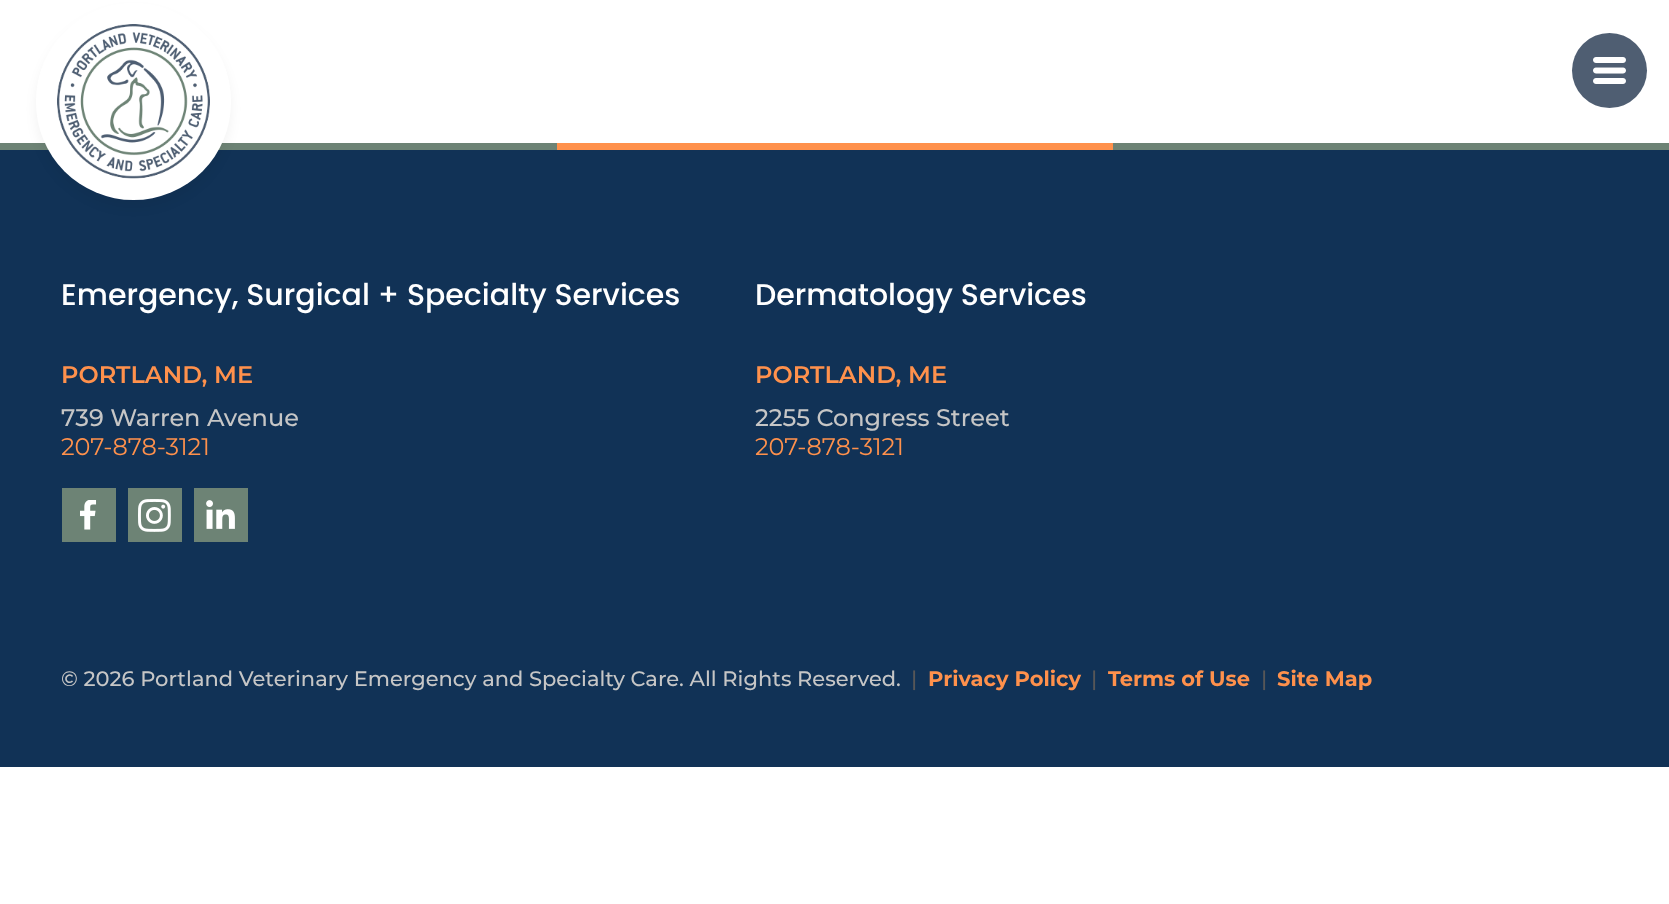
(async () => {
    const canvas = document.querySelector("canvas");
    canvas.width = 1669;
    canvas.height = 904;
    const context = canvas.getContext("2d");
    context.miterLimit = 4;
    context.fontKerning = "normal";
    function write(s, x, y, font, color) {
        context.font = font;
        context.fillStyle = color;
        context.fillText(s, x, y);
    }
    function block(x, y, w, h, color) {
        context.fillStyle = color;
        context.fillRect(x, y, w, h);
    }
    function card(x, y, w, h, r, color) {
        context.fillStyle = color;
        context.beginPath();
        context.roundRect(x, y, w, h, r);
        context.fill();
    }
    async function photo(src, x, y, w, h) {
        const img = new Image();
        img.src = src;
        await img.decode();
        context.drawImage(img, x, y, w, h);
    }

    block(0, 0, 1669, 904, "rgb(255, 255, 255)");
    block(0, 143, 557, 7, "rgb(109, 131, 117)");
    block(0, 150, 1669, 617, "rgb(17, 50, 86)");
    context.fillStyle = "rgba(0, 0, 0, 0.05)";
    context.filter = "blur(6px)";
    context.beginPath();
    context.roundRect(36, 11, 195, 196, 97.5);
    context.fill();
    context.filter = "none";
    card(36, 3, 195, 197, 97.5, "rgb(255, 255, 255)");
    await photo("media/1.png", 57, 24, 153, 155);
    context.fillStyle = "rgb(79, 94, 114)";
    context.beginPath();
    context.arc(1609.5, 70.5, 37.5, 0, Math.PI * 2);
    context.fill();
    await photo("media/2.png", 1593, 57, 33, 27);
    block(557, 143, 556, 7, "rgb(255, 145, 76)");
    block(1113, 143, 556, 7, "rgb(109, 131, 117)");
    write("Emergency, Surgical + Specialty Services", 61, 305, "500 30px Poppins", "rgb(255, 255, 255)");
    write("PORTLAND, ME", 61, 383, "600 24px Montserrat", "rgb(255, 145, 76)");
    write("739 Warren Avenue", 61, 426, "500 24px Montserrat", "rgb(198, 198, 198)");
    write("207-878-3121", 61, 455, "24px Montserrat", "rgb(255, 145, 76)");
    block(62, 488, 54, 54, "rgb(109, 131, 117)");
    await photo("media/3.png", 80, 500, 17, 30);
    block(128, 488, 54, 54, "rgb(109, 131, 117)");
    await photo("media/4.png", 138, 499, 33, 33);
    block(194, 488, 54, 54, "rgb(109, 131, 117)");
    await photo("media/5.png", 206, 500, 29, 29);
    write("Dermatology Services", 755, 305, "500 30px Poppins", "rgb(255, 255, 255)");
    write("PORTLAND, ME", 755, 383, "600 24px Montserrat", "rgb(255, 145, 76)");
    write("2255 Congress Street", 755, 426, "500 24px Montserrat", "rgb(198, 198, 198)");
    write("207-878-3121", 755, 455, "24px Montserrat", "rgb(255, 145, 76)");
    write("© 2026 Portland Veterinary Emergency and Specialty Care. All Rights Reserved.", 61, 686, "500 21px Montserrat", "rgb(198, 198, 198)");
    write("|", 911, 686, "500 21px Montserrat", "rgb(87, 87, 87)");
    write("Privacy Policy", 928, 686, "bold 21px Montserrat", "rgb(255, 145, 76)");
    write("|", 1091, 686, "500 21px Montserrat", "rgb(87, 87, 87)");
    write("Terms of Use", 1108, 686, "bold 21px Montserrat", "rgb(255, 145, 76)");
    write("|", 1261, 686, "500 21px Montserrat", "rgb(87, 87, 87)");
    write("Site Map", 1277, 686, "bold 21px Montserrat", "rgb(255, 145, 76)");
})();
